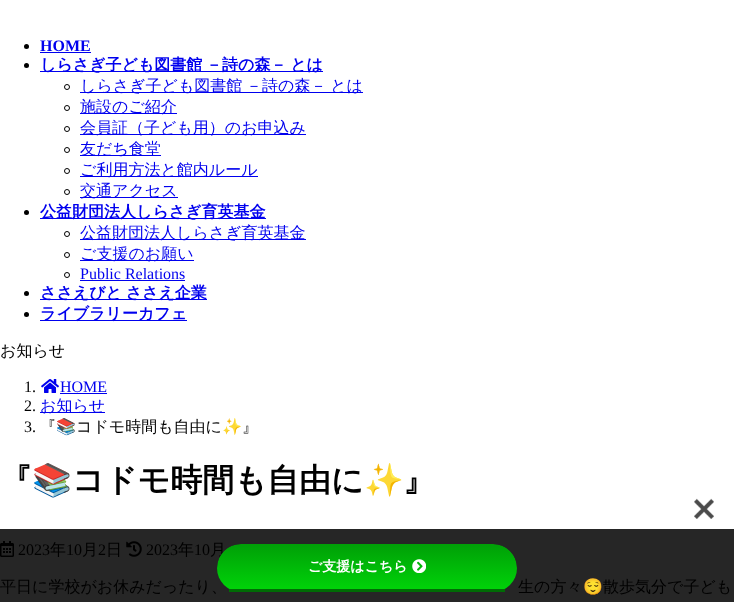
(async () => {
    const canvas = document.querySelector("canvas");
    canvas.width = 734;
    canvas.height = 602;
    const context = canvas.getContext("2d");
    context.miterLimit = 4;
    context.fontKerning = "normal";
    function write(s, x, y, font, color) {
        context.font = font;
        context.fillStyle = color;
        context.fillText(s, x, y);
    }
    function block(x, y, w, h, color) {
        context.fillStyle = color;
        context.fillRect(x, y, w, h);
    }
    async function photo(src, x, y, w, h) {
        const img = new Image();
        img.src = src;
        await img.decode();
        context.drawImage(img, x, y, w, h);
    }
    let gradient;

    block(0, 0, 734, 602, "rgb(255, 255, 255)");
    block(0, 529, 734, 73, "rgb(38, 38, 38)");
    context.fillStyle = "rgb(0, 0, 0)";
    context.beginPath();
    context.arc(26.5, 46.5, 2.5, 0, Math.PI * 2);
    context.fill();
    write("HOME", 40, 51, "bold 16px Liberation Serif", "rgb(0, 0, 238)");
    block(40, 52, 51, 1, "rgb(0, 0, 238)");
    context.fillStyle = "rgb(0, 0, 0)";
    context.beginPath();
    context.arc(26.5, 65.5, 2.5, 0, Math.PI * 2);
    context.fill();
    block(40, 71, 283, 1, "rgb(0, 0, 238)");
    context.wordSpacing = "-1px";
    write("しらさぎ子ども図書館 －詩の森－ とは", 40, 70, "bold 16px WenQuanYi Zen Hei", "rgb(0, 0, 238)");
    context.beginPath();
    context.arc(67, 87, 2.5, 0, Math.PI * 2);
    context.strokeStyle = "rgb(0, 0, 0)";
    context.stroke();
    block(80, 92, 283, 1, "rgb(0, 0, 238)");
    write("しらさぎ子ども図書館 －詩の森－ とは", 80, 91, "500 16px WenQuanYi Zen Hei", "rgb(0, 0, 238)");
    context.beginPath();
    context.arc(67, 108, 2.5, 0, Math.PI * 2);
    context.stroke();
    block(80, 113, 97, 1, "rgb(0, 0, 238)");
    context.wordSpacing = "0px";
    write("施設のご紹介", 80, 112, "500 16px WenQuanYi Zen Hei", "rgb(0, 0, 238)");
    context.beginPath();
    context.arc(67, 129, 2.5, 0, Math.PI * 2);
    context.stroke();
    block(80, 134, 226, 1, "rgb(0, 0, 238)");
    write("会員証（子ども用）のお申込み", 80, 133, "500 16px WenQuanYi Zen Hei", "rgb(0, 0, 238)");
    context.beginPath();
    context.arc(67, 150, 2.5, 0, Math.PI * 2);
    context.stroke();
    block(80, 155, 81, 1, "rgb(0, 0, 238)");
    write("友だち食堂", 80, 154, "500 16px WenQuanYi Zen Hei", "rgb(0, 0, 238)");
    context.beginPath();
    context.arc(67, 171, 2.5, 0, Math.PI * 2);
    context.stroke();
    block(80, 176, 178, 1, "rgb(0, 0, 238)");
    write("ご利用方法と館内ルール", 80, 175, "500 16px WenQuanYi Zen Hei", "rgb(0, 0, 238)");
    context.beginPath();
    context.arc(67, 192, 2.5, 0, Math.PI * 2);
    context.stroke();
    block(80, 197, 98, 1, "rgb(0, 0, 238)");
    write("交通アクセス", 80, 196, "500 16px WenQuanYi Zen Hei", "rgb(0, 0, 238)");
    context.fillStyle = "rgb(0, 0, 0)";
    context.beginPath();
    context.arc(26.5, 212.5, 2.5, 0, Math.PI * 2);
    context.fill();
    block(40, 218, 226, 1, "rgb(0, 0, 238)");
    write("公益財団法人しらさぎ育英基金", 40, 217, "bold 16px WenQuanYi Zen Hei", "rgb(0, 0, 238)");
    context.beginPath();
    context.arc(67, 234, 2.5, 0, Math.PI * 2);
    context.stroke();
    block(80, 239, 226, 1, "rgb(0, 0, 238)");
    write("公益財団法人しらさぎ育英基金", 80, 238, "500 16px WenQuanYi Zen Hei", "rgb(0, 0, 238)");
    context.beginPath();
    context.arc(67, 255, 2.5, 0, Math.PI * 2);
    context.stroke();
    block(80, 260, 114, 1, "rgb(0, 0, 238)");
    write("ご支援のお願い", 80, 259, "500 16px WenQuanYi Zen Hei", "rgb(0, 0, 238)");
    context.beginPath();
    context.arc(67, 275, 2.5, 0, Math.PI * 2);
    context.stroke();
    write("Public Relations", 80, 279, "16px Liberation Serif", "rgb(0, 0, 238)");
    block(80, 280, 105, 1, "rgb(0, 0, 238)");
    context.fillStyle = "rgb(0, 0, 0)";
    context.beginPath();
    context.arc(26.5, 293.5, 2.5, 0, Math.PI * 2);
    context.fill();
    block(40, 299, 167, 1, "rgb(0, 0, 238)");
    context.wordSpacing = "-1px";
    write("ささえびと ささえ企業", 40, 298, "bold 16px WenQuanYi Zen Hei", "rgb(0, 0, 238)");
    context.fillStyle = "rgb(0, 0, 0)";
    context.beginPath();
    context.arc(26.5, 314.5, 2.5, 0, Math.PI * 2);
    context.fill();
    block(40, 320, 147, 1, "rgb(0, 0, 238)");
    context.wordSpacing = "0px";
    write("ライブラリーカフェ", 40, 319, "bold 16px WenQuanYi Zen Hei", "rgb(0, 0, 238)");
    write("お知らせ", 0, 356, "500 16px WenQuanYi Zen Hei", "rgb(0, 0, 0)");
    write("1.", 24, 392, "16px Liberation Serif", "rgb(0, 0, 0)");
    await photo("media/1.png", 41, 379, 18, 14);
    write("HOME", 60, 392, "16px Liberation Serif", "rgb(0, 0, 238)");
    block(60, 393, 47, 1, "rgb(0, 0, 238)");
    write("2.", 24, 411, "16px Liberation Serif", "rgb(0, 0, 0)");
    block(40, 412, 65, 1, "rgb(0, 0, 238)");
    write("お知らせ", 40, 411, "500 16px WenQuanYi Zen Hei", "rgb(0, 0, 238)");
    write("3.", 24, 432, "16px Liberation Serif", "rgb(0, 0, 0)");
    write("『", 40, 432, "500 16px WenQuanYi Zen Hei", "rgb(0, 0, 0)");
    write("📚", 56, 432, "16px Noto Color Emoji", "rgb(0, 0, 0)");
    write("コドモ時間も自由に", 76, 432, "500 16px WenQuanYi Zen Hei", "rgb(0, 0, 0)");
    write("✨", 222, 432, "16px Noto Color Emoji", "rgb(0, 0, 0)");
    write("』", 242, 432, "500 16px WenQuanYi Zen Hei", "rgb(0, 0, 0)");
    write("『", 0, 491, "bold 32px WenQuanYi Zen Hei", "rgb(0, 0, 0)");
    write("📚", 32, 491, "bold 32px Noto Color Emoji", "rgb(0, 0, 0)");
    write("コドモ時間も自由に", 72, 491, "bold 32px WenQuanYi Zen Hei", "rgb(0, 0, 0)");
    write("✨", 364, 491, "bold 32px Noto Color Emoji", "rgb(0, 0, 0)");
    write("』", 403, 491, "bold 32px WenQuanYi Zen Hei", "rgb(0, 0, 0)");
    await photo("media/2.png", 0, 541, 14, 16);
    write("2023", 18, 555, "16px Liberation Serif", "rgb(0, 0, 0)");
    write("年", 50, 555, "500 16px WenQuanYi Zen Hei", "rgb(0, 0, 0)");
    write("10", 66, 555, "16px Liberation Serif", "rgb(0, 0, 0)");
    write("月", 82, 555, "500 16px WenQuanYi Zen Hei", "rgb(0, 0, 0)");
    write("2", 98, 555, "16px Liberation Serif", "rgb(0, 0, 0)");
    write("日", 106, 555, "500 16px WenQuanYi Zen Hei", "rgb(0, 0, 0)");
    await photo("media/3.png", 126, 541, 16, 16);
    write("2023", 146, 555, "16px Liberation Serif", "rgb(0, 0, 0)");
    write("年", 178, 555, "500 16px WenQuanYi Zen Hei", "rgb(0, 0, 0)");
    write("10", 194, 555, "16px Liberation Serif", "rgb(0, 0, 0)");
    write("月", 210, 555, "500 16px WenQuanYi Zen Hei", "rgb(0, 0, 0)");
    write("平日に学校がお休みだったり、", 0, 592, "500 16px WenQuanYi Zen Hei", "rgb(0, 0, 0)");
    write("生の方々", 518, 592, "500 16px WenQuanYi Zen Hei", "rgb(0, 0, 0)");
    write("😌", 583, 592, "16px Noto Color Emoji", "rgb(0, 0, 0)");
    write("散歩気分で子ども", 603, 592, "500 16px WenQuanYi Zen Hei", "rgb(0, 0, 0)");
    await photo("media/4.png", 694, 498, 20, 21);
    context.save();
    context.beginPath();
    context.roundRect(217, 544, 300, 48, 24);
    context.clip();
    gradient = context.createLinearGradient(367, 544, 367, 589);
    gradient.addColorStop(0, "rgb(0, 159, 7)");
    gradient.addColorStop(1, "rgb(0, 210, 9)");
    context.fillStyle = gradient;
    context.beginPath();
    context.roundRect(217, 544, 300, 45, [24, 24, 0, 0]);
    context.fill();
    context.restore();
    block(229, 589, 276, 3, "rgb(0, 108, 5)");
    write("ご支援はこちら", 308, 571, "bold 14px WenQuanYi Zen Hei", "rgb(255, 255, 255)");
    await photo("media/5.png", 412, 559, 14, 14);
})();
